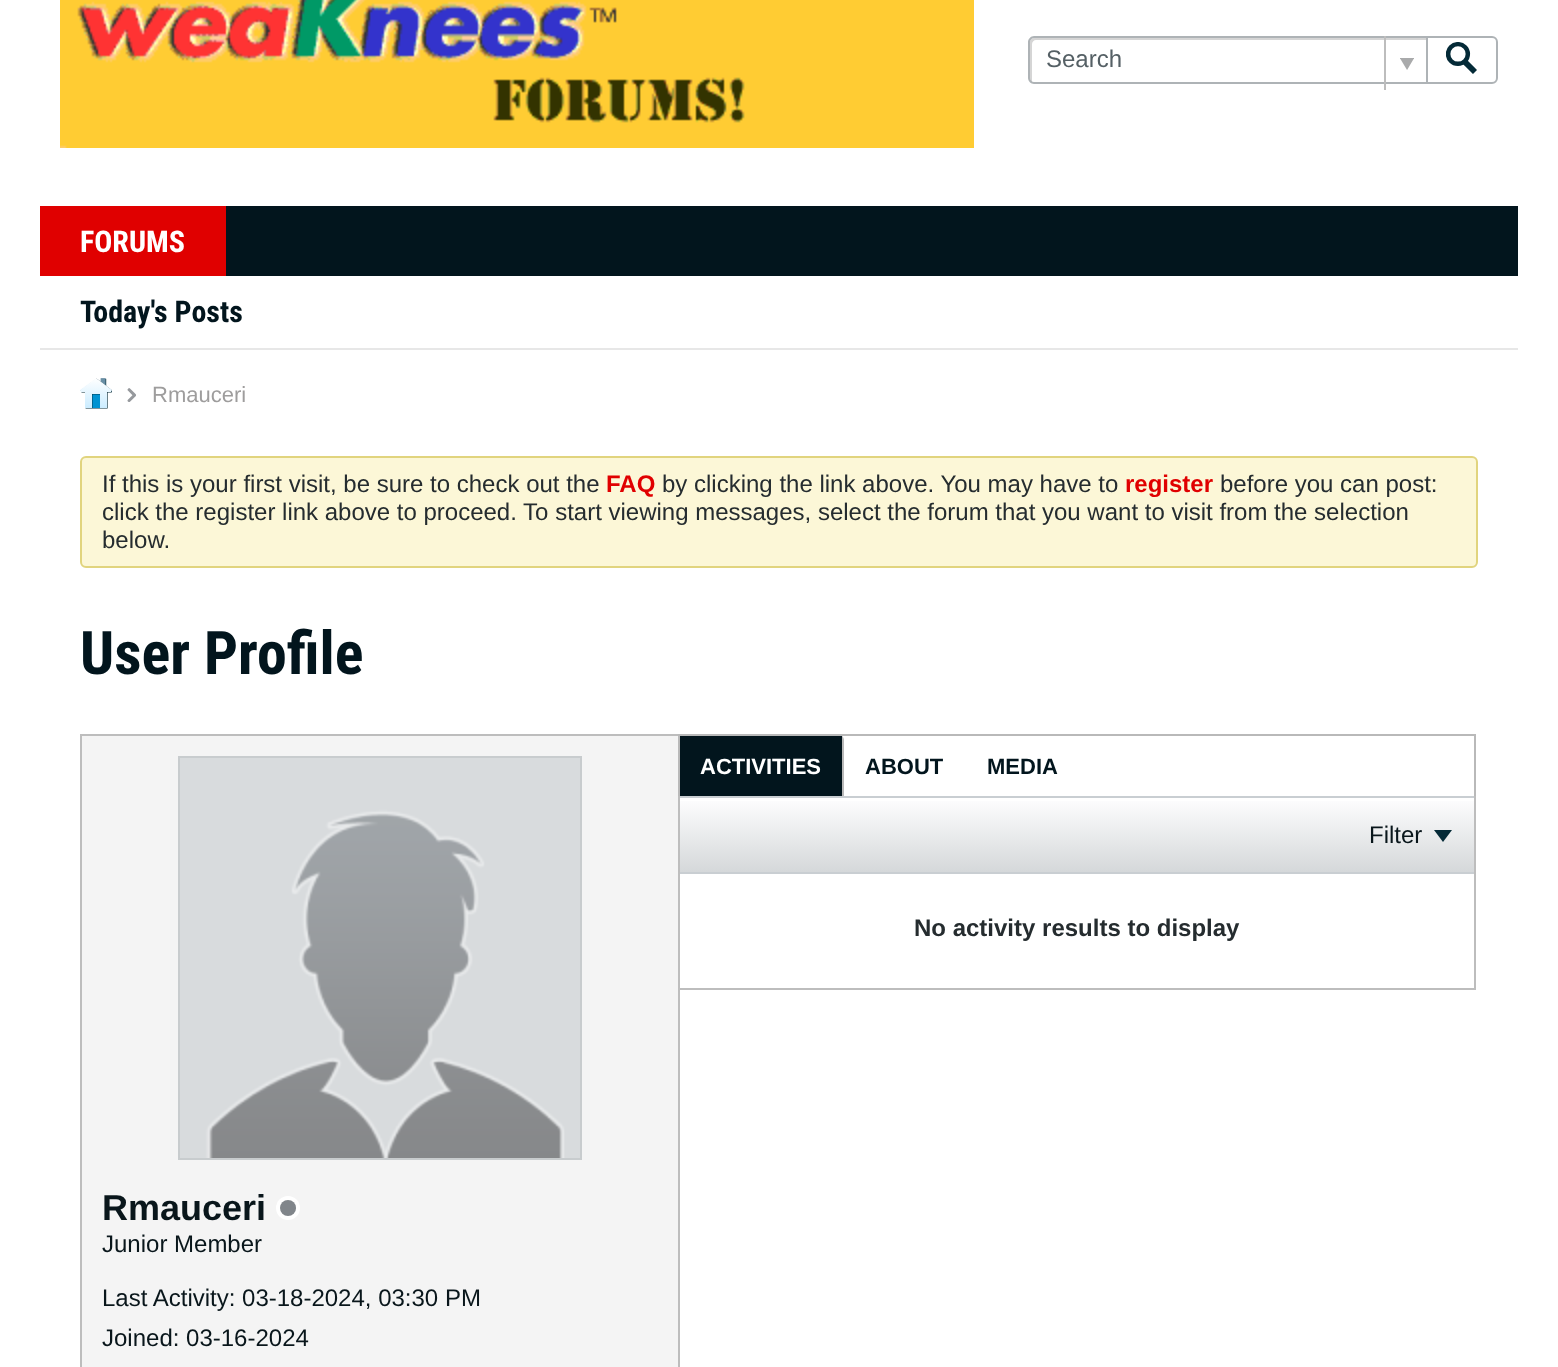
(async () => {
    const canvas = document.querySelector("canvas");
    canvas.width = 1558;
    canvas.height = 1367;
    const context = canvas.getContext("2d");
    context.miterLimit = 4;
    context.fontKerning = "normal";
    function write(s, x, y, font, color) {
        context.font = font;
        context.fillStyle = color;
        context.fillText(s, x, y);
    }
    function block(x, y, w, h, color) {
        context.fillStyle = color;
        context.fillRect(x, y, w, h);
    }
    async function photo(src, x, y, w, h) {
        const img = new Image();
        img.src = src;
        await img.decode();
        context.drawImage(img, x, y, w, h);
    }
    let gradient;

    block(0, 0, 1558, 1367, "rgb(255, 255, 255)");
    await photo("media/1.png", 60, 0, 914, 148);
    context.fillStyle = "rgb(213, 213, 213)";
    context.beginPath();
    context.moveTo(1036, 40);
    context.lineTo(1426, 40);
    context.lineTo(1426, 38);
    context.lineTo(1034, 38);
    context.bezierCurveTo(1032, 38, 1030, 40, 1030, 42);
    context.lineTo(1030, 78);
    context.bezierCurveTo(1030, 80, 1031, 81, 1032, 82);
    context.lineTo(1032, 80);
    context.lineTo(1032, 44);
    context.bezierCurveTo(1032, 42, 1034, 40, 1036, 40);
    context.closePath();
    context.fill();
    context.fillStyle = "rgb(174, 179, 182)";
    context.beginPath();
    context.moveTo(1034, 36);
    context.lineTo(1426, 36);
    context.lineTo(1426, 84);
    context.lineTo(1034, 84);
    context.bezierCurveTo(1031, 84, 1028, 81, 1028, 78);
    context.lineTo(1028, 42);
    context.bezierCurveTo(1028, 39, 1031, 36, 1034, 36);
    context.closePath();
    context.moveTo(1034, 38);
    context.lineTo(1426, 38);
    context.lineTo(1426, 82);
    context.lineTo(1034, 82);
    context.bezierCurveTo(1032, 82, 1030, 80, 1030, 78);
    context.lineTo(1030, 42);
    context.bezierCurveTo(1030, 40, 1032, 38, 1034, 38);
    context.closePath();
    context.fill("evenodd");
    write("Search", 1046, 67, "24px Liberation Sans", "rgb(85, 96, 101)");
    block(1384, 36, 2, 54, "rgb(189, 189, 189)");
    await photo("media/2.png", 1400, 58, 14, 12);
    context.beginPath();
    context.roundRect(1427, 37, 70, 46, [0, 5, 5, 0]);
    context.strokeStyle = "rgb(174, 179, 182)";
    context.lineWidth = 2;
    context.stroke();
    await photo("media/3.png", 1446, 42, 31, 32);
    block(226, 206, 1292, 70, "rgb(2, 21, 29)");
    block(40, 206, 186, 70, "rgb(224, 0, 0)");
    write("FORUMS", 80, 252, "bold 30px Roboto Condensed", "rgb(255, 255, 255)");
    block(40, 348, 1478, 2, "rgb(231, 231, 231)");
    write("Today's Posts", 80, 322, "bold 30px Roboto Condensed", "rgb(2, 21, 29)");
    await photo("media/4.png", 80, 378, 32, 31);
    await photo("media/5.png", 127, 388, 9, 14);
    write("Rmauceri", 152, 402, "22px Liberation Sans", "rgb(158, 157, 157)");
    context.fillStyle = "rgb(252, 247, 215)";
    context.beginPath();
    context.roundRect(81, 457, 1396, 110, 5);
    context.fill();
    context.strokeStyle = "rgb(225, 212, 126)";
    context.stroke();
    write("If this is your first visit, be sure to check out the", 102, 492, "24px Liberation Sans", "rgb(37, 44, 47)");
    write("FAQ", 606, 492, "bold 24px Liberation Sans", "rgb(224, 0, 0)");
    write("by clicking the link above. You may have to", 662, 492, "24px Liberation Sans", "rgb(37, 44, 47)");
    write("register", 1125, 492, "bold 24px Liberation Sans", "rgb(224, 0, 0)");
    write("before you can post:", 1220, 492, "24px Liberation Sans", "rgb(37, 44, 47)");
    write("click the register link above to proceed. To start viewing messages, select the forum that you want to visit from the selection", 102, 520, "24px Liberation Sans", "rgb(37, 44, 47)");
    write("below.", 102, 548, "24px Liberation Sans", "rgb(37, 44, 47)");
    write("User Profile", 80, 674, "bold 60px Roboto Condensed", "rgb(2, 21, 29)");
    context.strokeStyle = "rgb(189, 189, 189)";
    context.strokeRect(81, 735, 598, 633);
    context.strokeRect(679, 735, 796, 254);
    block(678, 734, 798, 2, "rgb(185, 185, 185)");
    block(1474, 734, 2, 62, "rgb(185, 185, 185)");
    block(678, 734, 2, 6, "rgb(185, 185, 185)");
    context.beginPath();
    context.moveTo(684, 734);
    context.lineTo(838, 734);
    context.bezierCurveTo(841, 734, 844, 737, 844, 740);
    context.lineTo(844, 796);
    context.lineTo(678, 796);
    context.lineTo(678, 740);
    context.bezierCurveTo(678, 737, 681, 734, 684, 734);
    context.closePath();
    context.moveTo(684, 736);
    context.lineTo(838, 736);
    context.bezierCurveTo(840, 736, 842, 738, 842, 740);
    context.lineTo(842, 796);
    context.lineTo(680, 796);
    context.lineTo(680, 740);
    context.bezierCurveTo(680, 738, 682, 736, 684, 736);
    context.closePath();
    context.fill("evenodd");
    block(680, 736, 162, 60, "rgb(2, 21, 29)");
    write("ACTIVITIES", 700, 774, "bold 22px Liberation Sans", "rgb(255, 255, 255)");
    write("ABOUT", 865, 774, "bold 22px Liberation Sans", "rgb(2, 21, 29)");
    write("MEDIA", 987, 774, "bold 22px Liberation Sans", "rgb(2, 21, 29)");
    gradient = context.createLinearGradient(1077, 798, 1077, 872);
    gradient.addColorStop(0, "rgb(254, 254, 255)");
    gradient.addColorStop(1, "rgb(213, 216, 218)");
    context.fillStyle = gradient;
    context.fillRect(680, 801, 794, 71);
    block(680, 796, 794, 2, "rgb(201, 206, 210)");
    block(680, 872, 794, 2, "rgb(201, 206, 210)");
    write("Filter", 1369, 843, "24px Liberation Sans", "rgb(9, 22, 27)");
    await photo("media/6.png", 1434, 830, 18, 12);
    write("No activity results to display", 914, 936, "bold 24px Liberation Sans", "rgb(37, 44, 47)");
    block(82, 736, 596, 631, "rgb(244, 244, 244)");
    context.strokeStyle = "rgb(200, 204, 206)";
    context.strokeRect(179, 757, 402, 402);
    await photo("media/7.png", 180, 758, 400, 400);
    write("Rmauceri", 102, 1220, "bold 36px Liberation Sans", "rgb(9, 22, 27)");
    await photo("media/8.png", 276, 1196, 24, 24);
    write("Junior Member", 102, 1252, "24px Liberation Sans", "rgb(9, 22, 27)");
    write("Last Activity: 03-18-2024, 03:30 PM", 102, 1306, "24px Liberation Sans", "rgb(9, 22, 27)");
    write("Joined: 03-16-2024", 102, 1346, "24px Liberation Sans", "rgb(9, 22, 27)");
})();
